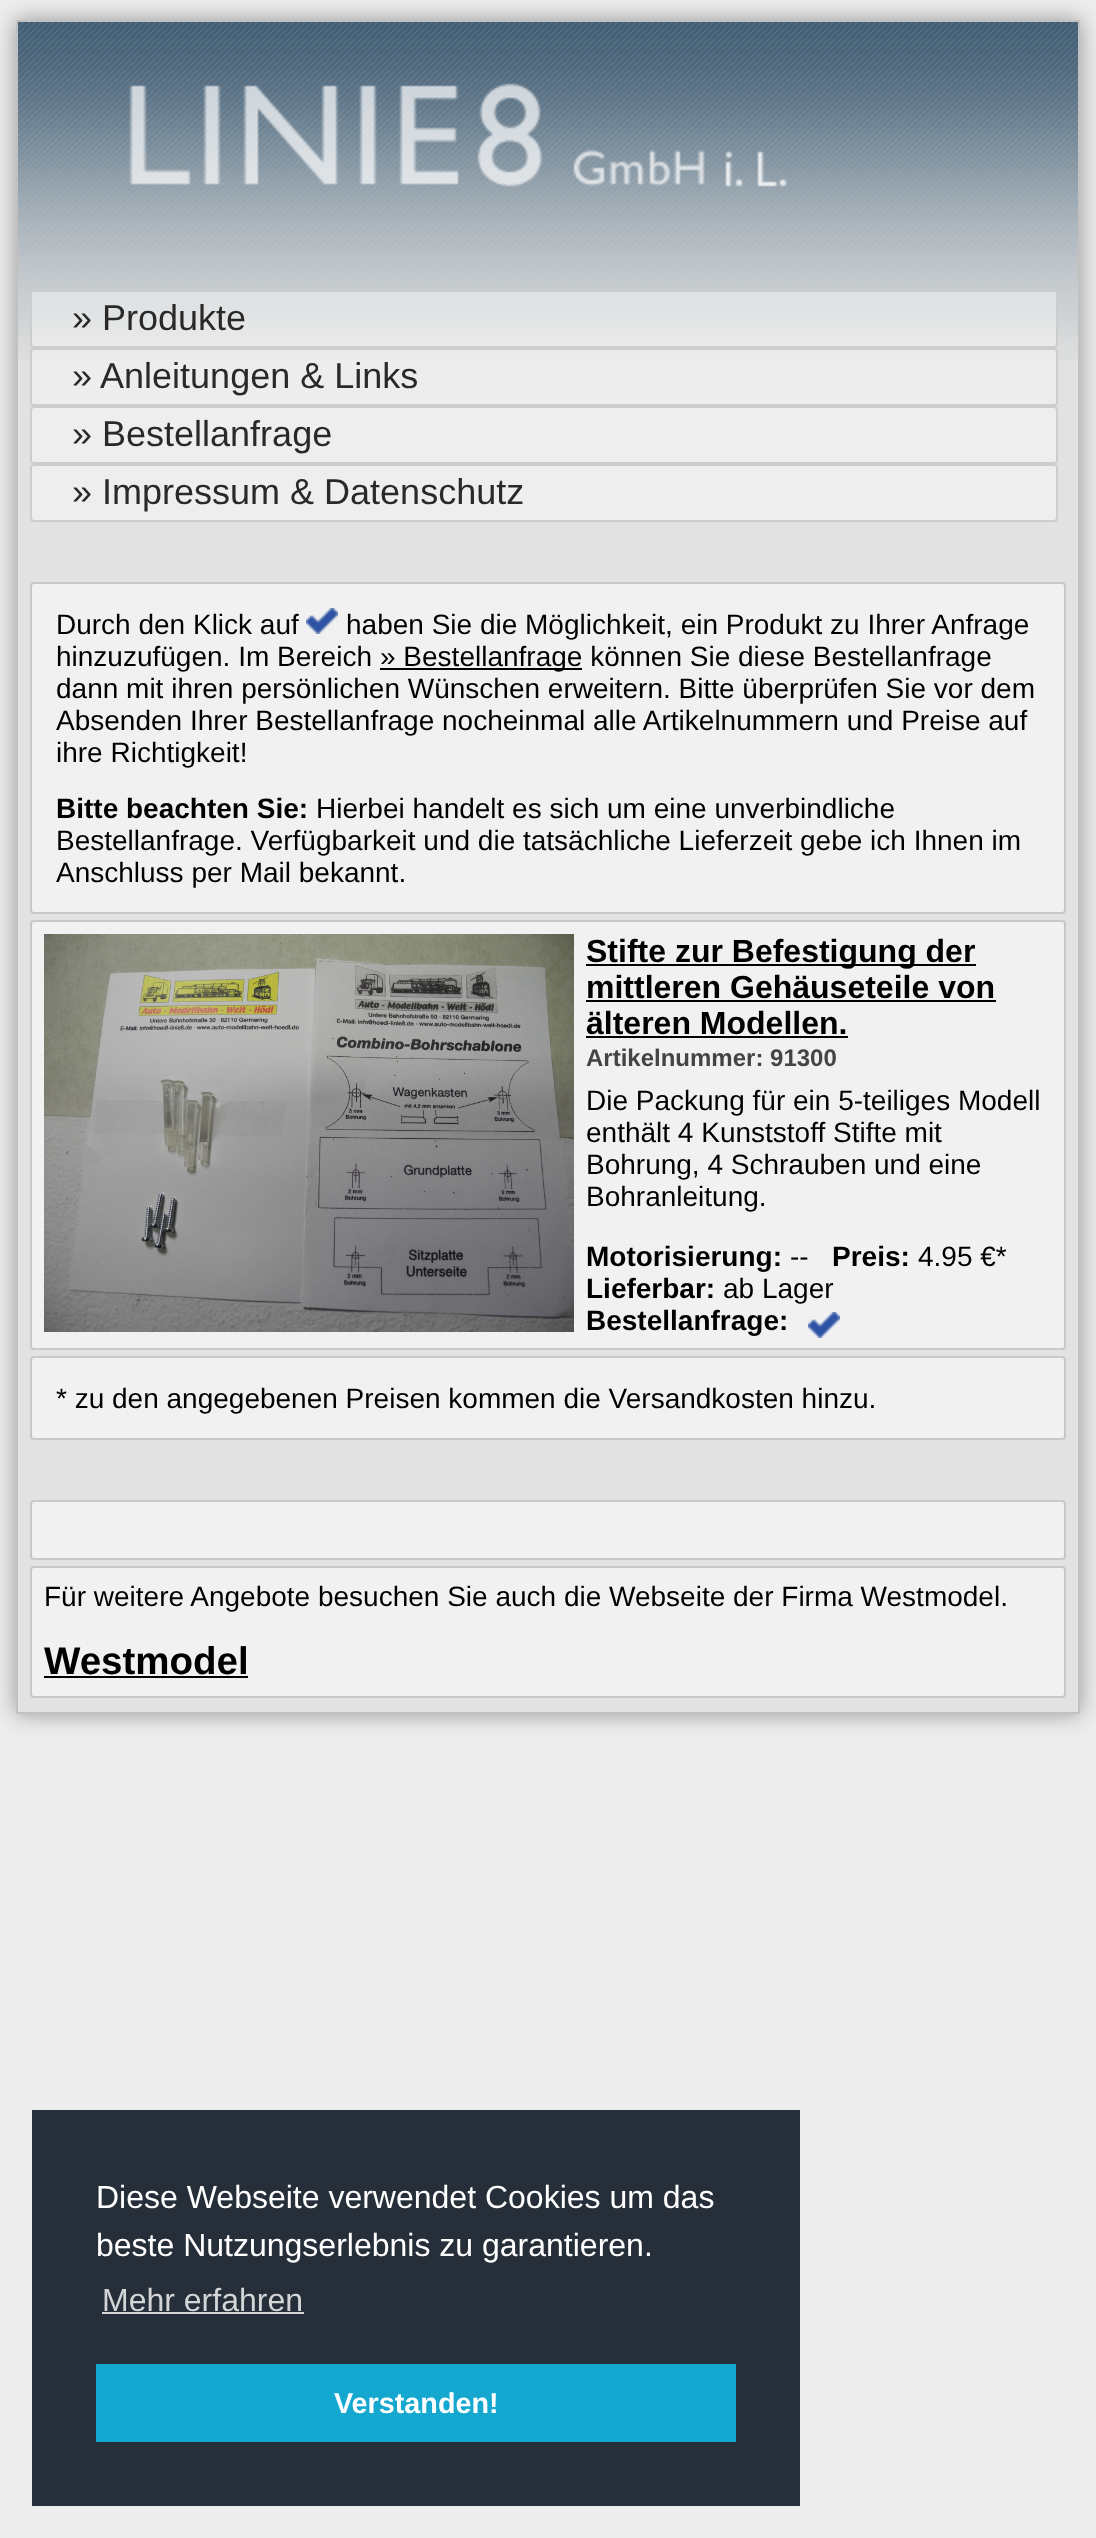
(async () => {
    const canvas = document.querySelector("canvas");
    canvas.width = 1096;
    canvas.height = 2538;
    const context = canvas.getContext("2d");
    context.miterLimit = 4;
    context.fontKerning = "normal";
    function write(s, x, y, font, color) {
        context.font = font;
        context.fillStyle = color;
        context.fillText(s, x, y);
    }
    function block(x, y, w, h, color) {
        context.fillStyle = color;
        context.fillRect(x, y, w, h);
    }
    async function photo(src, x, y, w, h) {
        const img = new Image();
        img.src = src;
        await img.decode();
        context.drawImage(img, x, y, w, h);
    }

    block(0, 0, 1096, 2538, "rgb(237, 237, 237)");
    context.fillStyle = "rgb(149, 149, 149)";
    context.filter = "blur(11px)";
    context.beginPath();
    context.rect(16, 20, 1064, 1694);
    context.fill();
    context.filter = "none";
    context.fillStyle = "rgb(226, 226, 226)";
    context.beginPath();
    context.rect(17, 21, 1062, 1692);
    context.fill();
    context.strokeStyle = "rgb(193, 193, 193)";
    context.lineWidth = 2;
    context.stroke();
    await photo("media/1.png", 18, 22, 1060, 338);
    await photo("media/2.png", 129, 83, 658, 104);
    context.fillStyle = "rgba(255, 255, 255, 0.4)";
    context.beginPath();
    context.roundRect(31, 291, 1026, 56, 3);
    context.fill();
    context.strokeStyle = "rgb(205, 205, 205)";
    context.stroke();
    write("» Produkte", 72, 330, "36px Liberation Sans", "rgb(41, 41, 41)");
    context.fillStyle = "rgba(255, 255, 255, 0.4)";
    context.beginPath();
    context.roundRect(31, 349, 1026, 56, 3);
    context.fill();
    context.stroke();
    write("» Anleitungen & Links", 72, 388, "36px Liberation Sans", "rgb(41, 41, 41)");
    context.fillStyle = "rgb(238, 238, 238)";
    context.beginPath();
    context.roundRect(31, 407, 1026, 56, 3);
    context.fill();
    context.stroke();
    write("» Bestellanfrage", 72, 446, "36px Liberation Sans", "rgb(41, 41, 41)");
    context.fillStyle = "rgb(238, 238, 238)";
    context.beginPath();
    context.roundRect(31, 465, 1026, 56, 3);
    context.fill();
    context.stroke();
    write("» Impressum & Datenschutz", 72, 504, "36px Liberation Sans", "rgb(41, 41, 41)");
    context.fillStyle = "rgb(241, 241, 241)";
    context.beginPath();
    context.roundRect(31, 583, 1034, 330, 3);
    context.fill();
    context.strokeStyle = "rgb(200, 200, 200)";
    context.stroke();
    write("Durch den Klick auf", 56, 634, "28px Liberation Sans", "rgb(0, 0, 0)");
    await photo("media/3.png", 306, 608, 32, 26);
    write("haben Sie die Möglichkeit, ein Produkt zu Ihrer Anfrage", 346, 634, "28px Liberation Sans", "rgb(0, 0, 0)");
    write("hinzuzufügen. Im Bereich", 56, 666, "28px Liberation Sans", "rgb(0, 0, 0)");
    block(380, 668, 202, 2, "rgb(0, 0, 0)");
    write("» Bestellanfrage können Sie diese Bestellanfrage", 380, 666, "28px Liberation Sans", "rgb(0, 0, 0)");
    write("dann mit ihren persönlichen Wünschen erweitern. Bitte überprüfen Sie vor dem", 56, 698, "28px Liberation Sans", "rgb(0, 0, 0)");
    write("Absenden Ihrer Bestellanfrage nocheinmal alle Artikelnummern und Preise auf", 56, 730, "28px Liberation Sans", "rgb(0, 0, 0)");
    write("ihre Richtigkeit!", 56, 762, "28px Liberation Sans", "rgb(0, 0, 0)");
    write("Bitte beachten Sie:", 56, 818, "bold 28px Liberation Sans", "rgb(0, 0, 0)");
    write("Hierbei handelt es sich um eine unverbindliche", 316, 818, "28px Liberation Sans", "rgb(0, 0, 0)");
    write("Bestellanfrage. Verfügbarkeit und die tatsächliche Lieferzeit gebe ich Ihnen im", 56, 850, "28px Liberation Sans", "rgb(0, 0, 0)");
    write("Anschluss per Mail bekannt.", 56, 882, "28px Liberation Sans", "rgb(0, 0, 0)");
    context.fillStyle = "rgb(241, 241, 241)";
    context.beginPath();
    context.roundRect(31, 921, 1034, 428, 3);
    context.fill();
    context.stroke();
    await photo("media/4.png", 44, 934, 530, 398);
    block(586, 964, 390, 2, "rgb(0, 0, 0)");
    write("Stifte zur Befestigung der", 586, 962, "bold 32px Liberation Sans", "rgb(0, 0, 0)");
    write("mittleren Gehäuseteile von", 586, 998, "bold 32px Liberation Sans", "rgb(0, 0, 0)");
    block(586, 1000, 410, 2, "rgb(0, 0, 0)");
    write("älteren Modellen.", 586, 1034, "bold 32px Liberation Sans", "rgb(0, 0, 0)");
    block(586, 1036, 262, 2, "rgb(0, 0, 0)");
    write("Artikelnummer: 91300", 586, 1066, "bold 24px Liberation Sans", "rgb(68, 68, 68)");
    write("Die Packung für ein 5-teiliges Modell", 586, 1110, "28px Liberation Sans", "rgb(0, 0, 0)");
    write("enthält 4 Kunststoff Stifte mit", 586, 1142, "28px Liberation Sans", "rgb(0, 0, 0)");
    write("Bohrung, 4 Schrauben und eine", 586, 1174, "28px Liberation Sans", "rgb(0, 0, 0)");
    write("Bohranleitung.", 586, 1206, "28px Liberation Sans", "rgb(0, 0, 0)");
    write("Motorisierung:", 586, 1266, "bold 28px Liberation Sans", "rgb(0, 0, 0)");
    write("--", 790, 1266, "28px Liberation Sans", "rgb(0, 0, 0)");
    write("Preis:", 832, 1266, "bold 28px Liberation Sans", "rgb(0, 0, 0)");
    write("4.95 €*", 918, 1266, "28px Liberation Sans", "rgb(0, 0, 0)");
    write("Lieferbar:", 586, 1298, "bold 28px Liberation Sans", "rgb(0, 0, 0)");
    write("ab Lager", 723, 1298, "28px Liberation Sans", "rgb(0, 0, 0)");
    write("Bestellanfrage:", 586, 1330, "bold 28px Liberation Sans", "rgb(0, 0, 0)");
    await photo("media/3.png", 808, 1312, 32, 26);
    context.fillStyle = "rgb(241, 241, 241)";
    context.beginPath();
    context.roundRect(31, 1357, 1034, 82, 3);
    context.fill();
    context.stroke();
    write("* zu den angegebenen Preisen kommen die Versandkosten hinzu.", 56, 1408, "28px Liberation Sans", "rgb(0, 0, 0)");
    context.fillStyle = "rgb(241, 241, 241)";
    context.beginPath();
    context.roundRect(31, 1501, 1034, 58, 3);
    context.fill();
    context.stroke();
    context.beginPath();
    context.roundRect(31, 1567, 1034, 130, 3);
    context.fill();
    context.stroke();
    write("Für weitere Angebote besuchen Sie auch die Webseite der Firma Westmodel.", 44, 1606, "28px Liberation Sans", "rgb(0, 0, 0)");
    write("Westmodel", 44, 1674, "bold 38.5px Liberation Sans", "rgb(0, 0, 0)");
    block(44, 1676, 204, 2, "rgb(0, 0, 0)");
    block(32, 2110, 768, 396, "rgb(37, 46, 57)");
    write("Diese Webseite verwendet Cookies um das", 96, 2208, "32px Liberation Sans", "rgb(255, 255, 255)");
    write("beste Nutzungserlebnis zu garantieren.", 96, 2256, "32px Liberation Sans", "rgb(255, 255, 255)");
    write("Mehr erfahren", 102, 2311, "32px Liberation Sans", "rgb(211, 213, 215)");
    block(102, 2312, 202, 2, "rgb(211, 213, 215)");
    block(96, 2364, 640, 78, "rgb(20, 167, 208)");
    write("Verstanden!", 334, 2413, "bold 28.75px Liberation Sans", "rgb(255, 255, 255)");
})();
